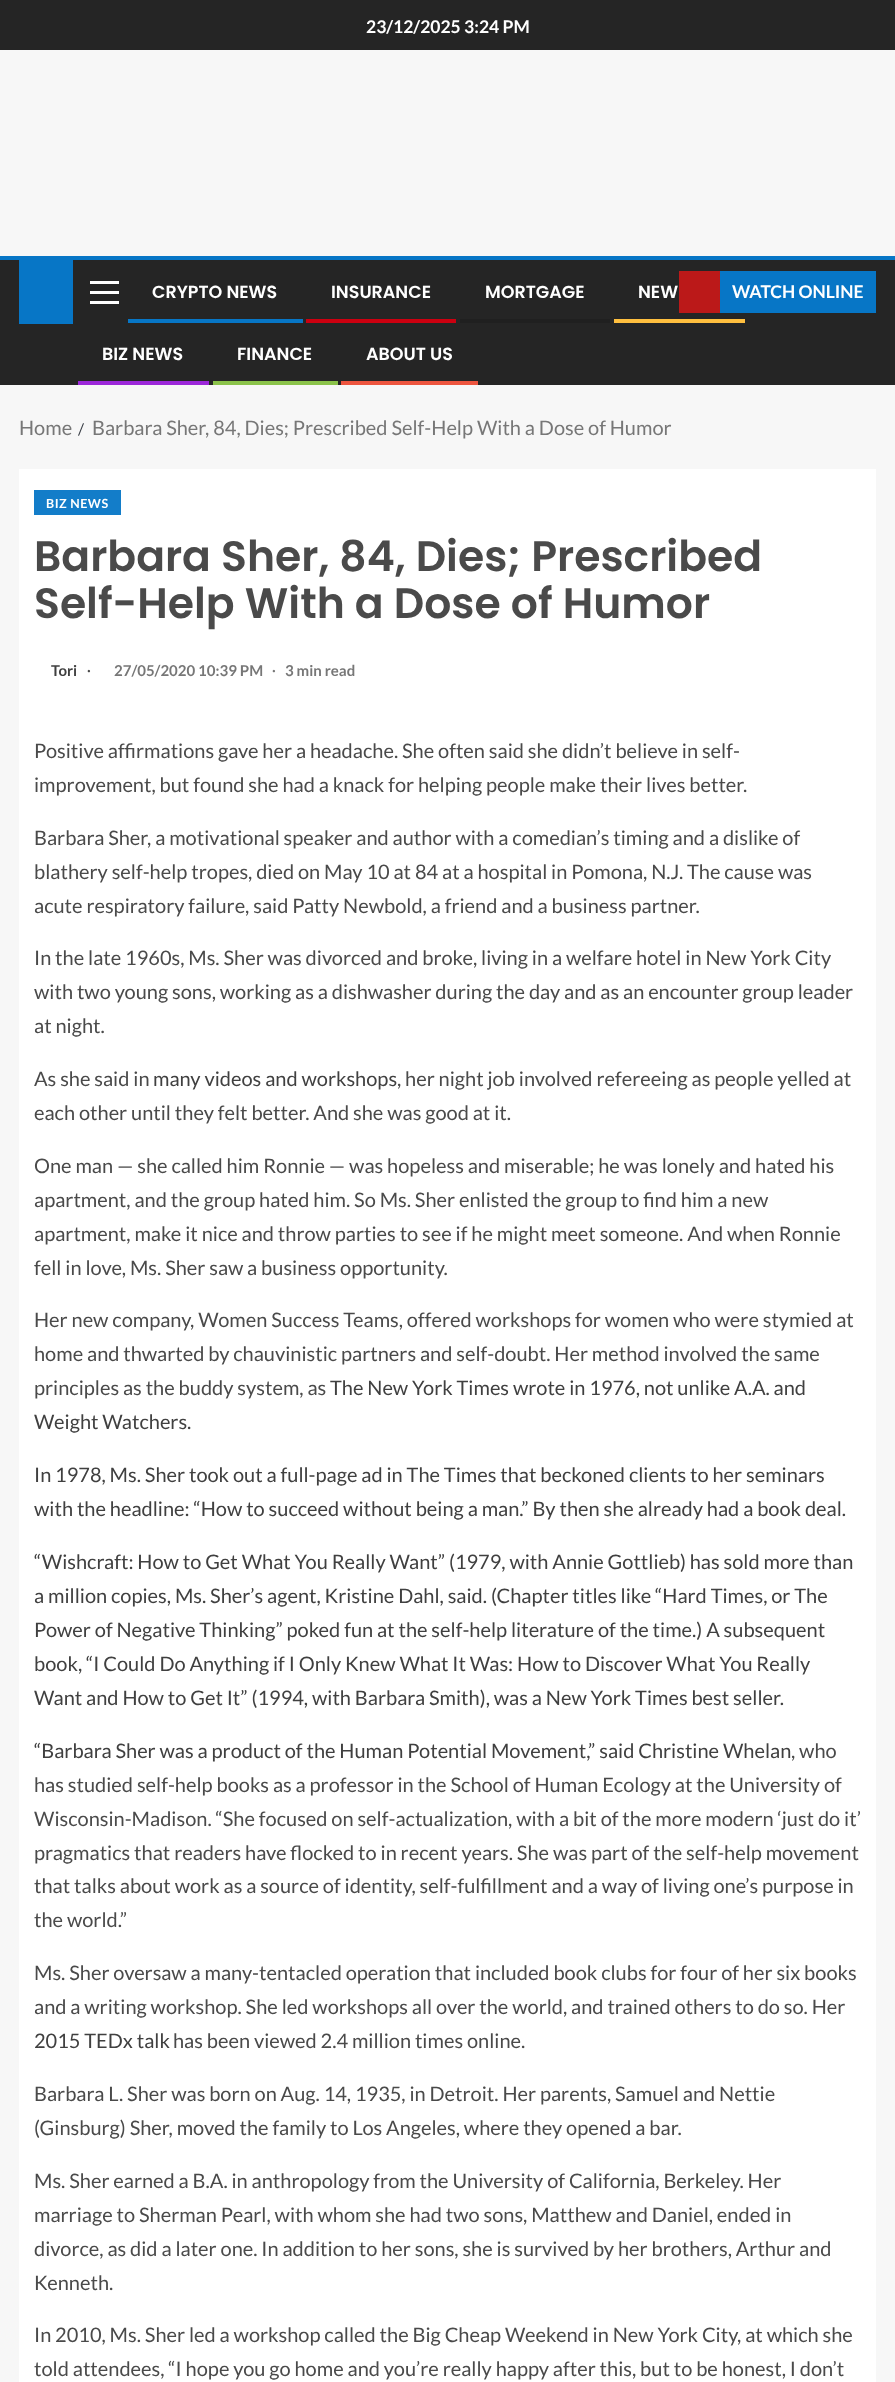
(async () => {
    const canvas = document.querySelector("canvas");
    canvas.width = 895;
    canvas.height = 2382;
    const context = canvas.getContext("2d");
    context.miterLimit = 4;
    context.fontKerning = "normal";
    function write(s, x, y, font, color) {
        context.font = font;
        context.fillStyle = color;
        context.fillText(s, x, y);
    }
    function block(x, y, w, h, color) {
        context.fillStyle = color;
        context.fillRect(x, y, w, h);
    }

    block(0, 0, 895, 2382, "rgb(247, 247, 247)");
    block(0, 0, 895, 50, "rgb(37, 37, 37)");
    write("23/12/2025 3:24 PM", 366, 33, "bold 17.5px Lato", "rgb(255, 255, 255)");
    block(0, 260, 895, 125, "rgb(37, 37, 37)");
    block(0, 256, 895, 4, "rgb(7, 118, 198)");
    block(19, 260, 54, 64, "rgb(7, 118, 198)");
    block(90, 291, 29, 3, "rgb(255, 255, 255)");
    block(90, 281, 29, 3, "rgb(255, 255, 255)");
    block(90, 301, 29, 3, "rgb(255, 255, 255)");
    write("CRYPTO NEWS", 152, 298, "600 17.5px Poppins", "rgb(255, 255, 255)");
    block(128, 319, 175, 4, "rgb(7, 118, 198)");
    write("INSURANCE", 331, 298, "600 17.5px Poppins", "rgb(255, 255, 255)");
    block(306, 319, 150, 4, "rgb(204, 0, 16)");
    write("MORTGAGE", 485, 298, "600 17.5px Poppins", "rgb(255, 255, 255)");
    block(460, 319, 150, 4, "rgb(32, 32, 32)");
    write("NEW", 638, 298, "600 17.5px Poppins", "rgb(255, 255, 255)");
    block(614, 319, 131, 4, "rgb(255, 191, 63)");
    write("BIZ NEWS", 102, 360, "600 17.5px Poppins", "rgb(255, 255, 255)");
    block(78, 381, 131, 4, "rgb(156, 39, 217)");
    write("FINANCE", 237, 360, "600 17.5px Poppins", "rgb(255, 255, 255)");
    block(213, 381, 125, 4, "rgb(139, 195, 74)");
    write("ABOUT US", 366, 360, "600 17.5px Poppins", "rgb(255, 255, 255)");
    block(341, 381, 137, 4, "rgb(237, 85, 63)");
    block(679, 271, 41, 42, "rgb(187, 25, 25)");
    block(720, 271, 156, 42, "rgb(7, 118, 198)");
    write("WATCH ONLINE", 732, 298, "bold 17.5px Lato", "rgb(255, 255, 255)");
    write("Home", 19, 435, "20px Lato", "rgb(119, 119, 119)");
    write("/", 78, 435, "16px Lato", "rgb(57, 62, 70)");
    write("Barbara Sher, 84, Dies; Prescribed Self-Help With a Dose of Humor", 92, 435, "20px Lato", "rgb(119, 119, 119)");
    block(19, 469, 857, 1913, "rgb(255, 255, 255)");
    block(34, 490, 87, 25, "rgb(19, 125, 201)");
    context.letterSpacing = "0.5px";
    write("BIZ NEWS", 46, 508, "bold 12.5px Lato", "rgb(255, 255, 255)");
    context.letterSpacing = "0px";
    write("Barbara Sher, 84, Dies; Prescribed", 34, 571, "600 42.5px Poppins", "rgb(74, 74, 74)");
    write("Self-Help With a Dose of Humor", 34, 618, "600 42.5px Poppins", "rgb(74, 74, 74)");
    write("Tori", 51, 676, "bold 15px Lato", "rgb(64, 64, 64)");
    write("∙", 87, 676, "bold 15px Liberation Serif", "rgb(74, 74, 74)");
    write("27/05/2020 10:39 PM", 114, 676, "bold 15px Lato", "rgb(119, 119, 119)");
    write("∙", 272, 676, "bold 15px Liberation Serif", "rgb(119, 119, 119)");
    write("3 min read", 285, 676, "bold 15px Lato", "rgb(119, 119, 119)");
    write("Positive affirmations gave her a headache. She often said she didn’t believe in self-", 34, 758, "20px Lato", "rgb(74, 74, 74)");
    write("improvement, but found she had a knack for helping people make their lives better.", 34, 792, "20px Lato", "rgb(74, 74, 74)");
    write("Barbara Sher, a motivational speaker and author with a comedian’s timing and a dislike of", 34, 845, "20px Lato", "rgb(74, 74, 74)");
    write("blathery self-help tropes, died on May 10 at 84 at a hospital in Pomona, N.J. The cause was", 34, 879, "20px Lato", "rgb(74, 74, 74)");
    write("acute respiratory failure, said Patty Newbold, a friend and a business partner.", 34, 913, "20px Lato", "rgb(74, 74, 74)");
    write("In the late 1960s, Ms. Sher was divorced and broke, living in a welfare hotel in New York City", 34, 965, "20px Lato", "rgb(74, 74, 74)");
    write("with two young sons, working as a dishwasher during the day and as an encounter group leader", 34, 999, "20px Lato", "rgb(74, 74, 74)");
    write("at night.", 34, 1033, "20px Lato", "rgb(74, 74, 74)");
    write("As she said in", 34, 1086, "20px Lato", "rgb(74, 74, 74)");
    write("many videos and workshops", 153, 1086, "20px Lato", "rgb(64, 64, 64)");
    write(", her night job involved refereeing as people yelled at", 397, 1086, "20px Lato", "rgb(74, 74, 74)");
    write("each other until they felt better. And she was good at it.", 34, 1120, "20px Lato", "rgb(74, 74, 74)");
    write("One man — she called him Ronnie — was hopeless and miserable; he was lonely and hated his", 34, 1173, "20px Lato", "rgb(74, 74, 74)");
    write("apartment, and the group hated him. So Ms. Sher enlisted the group to find him a new", 34, 1207, "20px Lato", "rgb(74, 74, 74)");
    write("apartment, make it nice and throw parties to see if he might meet someone. And when Ronnie", 34, 1241, "20px Lato", "rgb(74, 74, 74)");
    write("fell in love, Ms. Sher saw a business opportunity.", 34, 1275, "20px Lato", "rgb(74, 74, 74)");
    write("Her new company, Women Success Teams, offered workshops for women who were stymied at", 34, 1327, "20px Lato", "rgb(74, 74, 74)");
    write("home and thwarted by chauvinistic partners and self-doubt. Her method involved the same", 34, 1361, "20px Lato", "rgb(74, 74, 74)");
    write("principles as the buddy system, as", 34, 1395, "20px Lato", "rgb(74, 74, 74)");
    write("The New York Times wrote in 1976, not unlike A.A. and", 330, 1395, "20px Lato", "rgb(64, 64, 64)");
    write("Weight Watchers.", 34, 1429, "20px Lato", "rgb(64, 64, 64)");
    write("In 1978, Ms. Sher took out a full-page ad in The Times that beckoned clients to her seminars", 34, 1482, "20px Lato", "rgb(64, 64, 64)");
    write("with the headline: “How to succeed without being a man.” By then she already had a book deal.", 34, 1516, "20px Lato", "rgb(64, 64, 64)");
    write("“Wishcraft: How to Get What You Really Want” (1979, with Annie Gottlieb) has sold more than", 34, 1569, "20px Lato", "rgb(64, 64, 64)");
    write("a million copies, Ms. Sher’s agent, Kristine Dahl, said. (Chapter titles like “Hard Times, or The", 34, 1603, "20px Lato", "rgb(64, 64, 64)");
    write("Power of Negative Thinking” poked fun at the self-help literature of the time.) A subsequent", 34, 1637, "20px Lato", "rgb(64, 64, 64)");
    write("book, “I Could Do Anything if I Only Knew What It Was: How to Discover What You Really", 34, 1671, "20px Lato", "rgb(64, 64, 64)");
    write("Want and How to Get It” (1994, with Barbara Smith), was a New York Times best seller.", 34, 1705, "20px Lato", "rgb(64, 64, 64)");
    write("“Barbara Sher was a product of the Human Potential Movement,” said Christine Whelan", 34, 1758, "20px Lato", "rgb(64, 64, 64)");
    write(", who", 791, 1758, "20px Lato", "rgb(74, 74, 74)");
    write("has studied self-help books as a professor in the School of Human Ecology at the University of", 34, 1792, "20px Lato", "rgb(74, 74, 74)");
    write("Wisconsin-Madison. “She focused on self-actualization, with a bit of the more modern ‘just do it’", 34, 1826, "20px Lato", "rgb(74, 74, 74)");
    write("pragmatics that readers have flocked to in recent years. She was part of the self-help movement", 34, 1860, "20px Lato", "rgb(74, 74, 74)");
    write("that talks about work as a source of identity, self-fulfillment and a way of living one’s purpose in", 34, 1893, "20px Lato", "rgb(74, 74, 74)");
    write("the world.”", 34, 1927, "20px Lato", "rgb(74, 74, 74)");
    write("Ms. Sher oversaw a many-tentacled operation that included book clubs for four of her six books", 34, 1980, "20px Lato", "rgb(74, 74, 74)");
    write("and a writing workshop. She led workshops all over the world, and trained others to do so. Her", 34, 2014, "20px Lato", "rgb(74, 74, 74)");
    write("2015 TEDx talk", 34, 2048, "20px Lato", "rgb(64, 64, 64)");
    write("has been viewed 2.4 million times online.", 173, 2048, "20px Lato", "rgb(74, 74, 74)");
    write("Barbara L. Sher was born on Aug. 14, 1935, in Detroit. Her parents, Samuel and Nettie", 34, 2101, "20px Lato", "rgb(74, 74, 74)");
    write("(Ginsburg) Sher, moved the family to Los Angeles, where they opened a bar.", 34, 2135, "20px Lato", "rgb(74, 74, 74)");
    write("Ms. Sher earned a B.A. in anthropology from the University of California, Berkeley. Her", 34, 2188, "20px Lato", "rgb(74, 74, 74)");
    write("marriage to Sherman Pearl, with whom she had two sons, Matthew and Daniel, ended in", 34, 2222, "20px Lato", "rgb(74, 74, 74)");
    write("divorce, as did a later one. In addition to her sons, she is survived by her brothers, Arthur and", 34, 2256, "20px Lato", "rgb(74, 74, 74)");
    write("Kenneth.", 34, 2290, "20px Lato", "rgb(74, 74, 74)");
    write("In 2010, Ms. Sher led a workshop called the Big Cheap Weekend in New York City, at which she", 34, 2342, "20px Lato", "rgb(74, 74, 74)");
    write("told attendees, “I hope you go home and you’re really happy after this, but to be honest, I don’t", 34, 2376, "20px Lato", "rgb(74, 74, 74)");
})();
